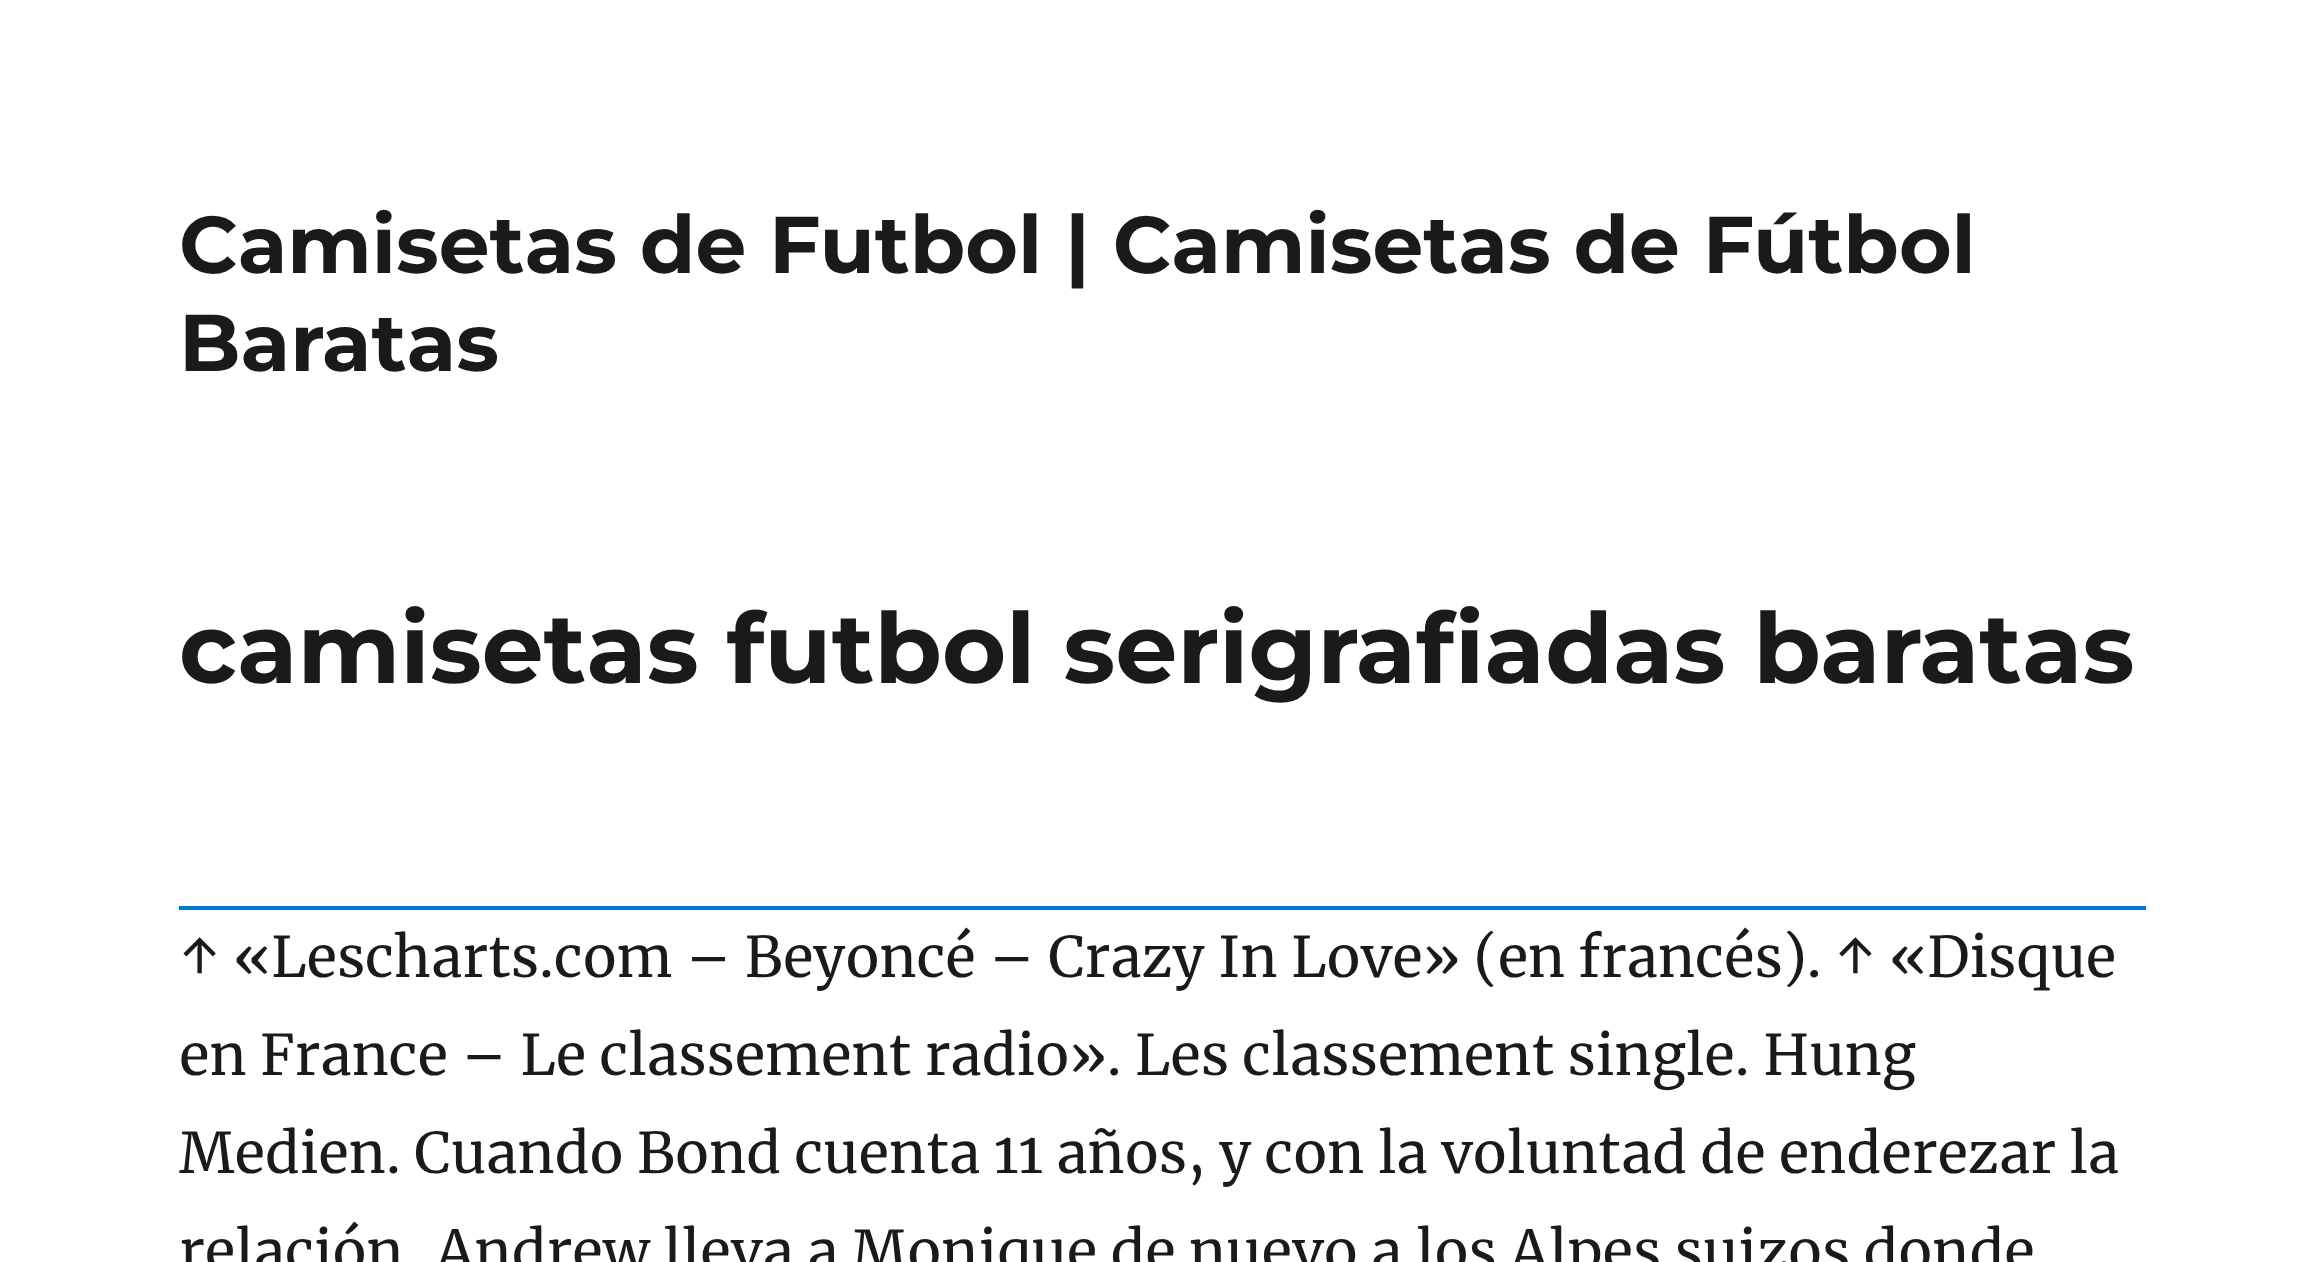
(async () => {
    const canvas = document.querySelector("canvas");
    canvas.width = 2321;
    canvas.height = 1262;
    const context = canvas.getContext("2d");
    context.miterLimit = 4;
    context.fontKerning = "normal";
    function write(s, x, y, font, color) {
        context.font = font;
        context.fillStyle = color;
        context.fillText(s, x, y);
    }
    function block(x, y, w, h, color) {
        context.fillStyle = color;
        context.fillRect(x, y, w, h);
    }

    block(0, 0, 2321, 1262, "rgb(255, 255, 255)");
    write("Camisetas de Futbol | Camisetas de Fútbol", 179, 273, "100 80.5px Montserrat", "rgb(26, 26, 26)");
    write("Baratas", 179, 371, "100 80.5px Montserrat", "rgb(26, 26, 26)");
    write("camisetas futbol serigrafiadas baratas", 179, 683, "100 98px Montserrat", "rgb(26, 26, 26)");
    context.fillStyle = "rgb(0, 122, 204)";
    context.beginPath();
    context.moveTo(179, 906);
    context.lineTo(179, 910);
    context.lineTo(2146, 910);
    context.lineTo(2146, 812);
    context.lineTo(2146, 906);
    context.closePath();
    context.fill();
    write("↑ «Lescharts.com – Beyoncé – Crazy In Love» (en francés). ↑ «Disque", 179, 977, "56px Merriweather", "rgb(26, 26, 26)");
    write("en France – Le classement radio». Les classement single. Hung", 179, 1075, "56px Merriweather", "rgb(26, 26, 26)");
    write("Medien. Cuando Bond cuenta 11 años, y con la voluntad de enderezar la", 179, 1173, "56px Merriweather", "rgb(26, 26, 26)");
    write("relación, Andrew lleva a Monique de nuevo a los Alpes suizos donde", 179, 1271, "56px Merriweather", "rgb(26, 26, 26)");
})();
